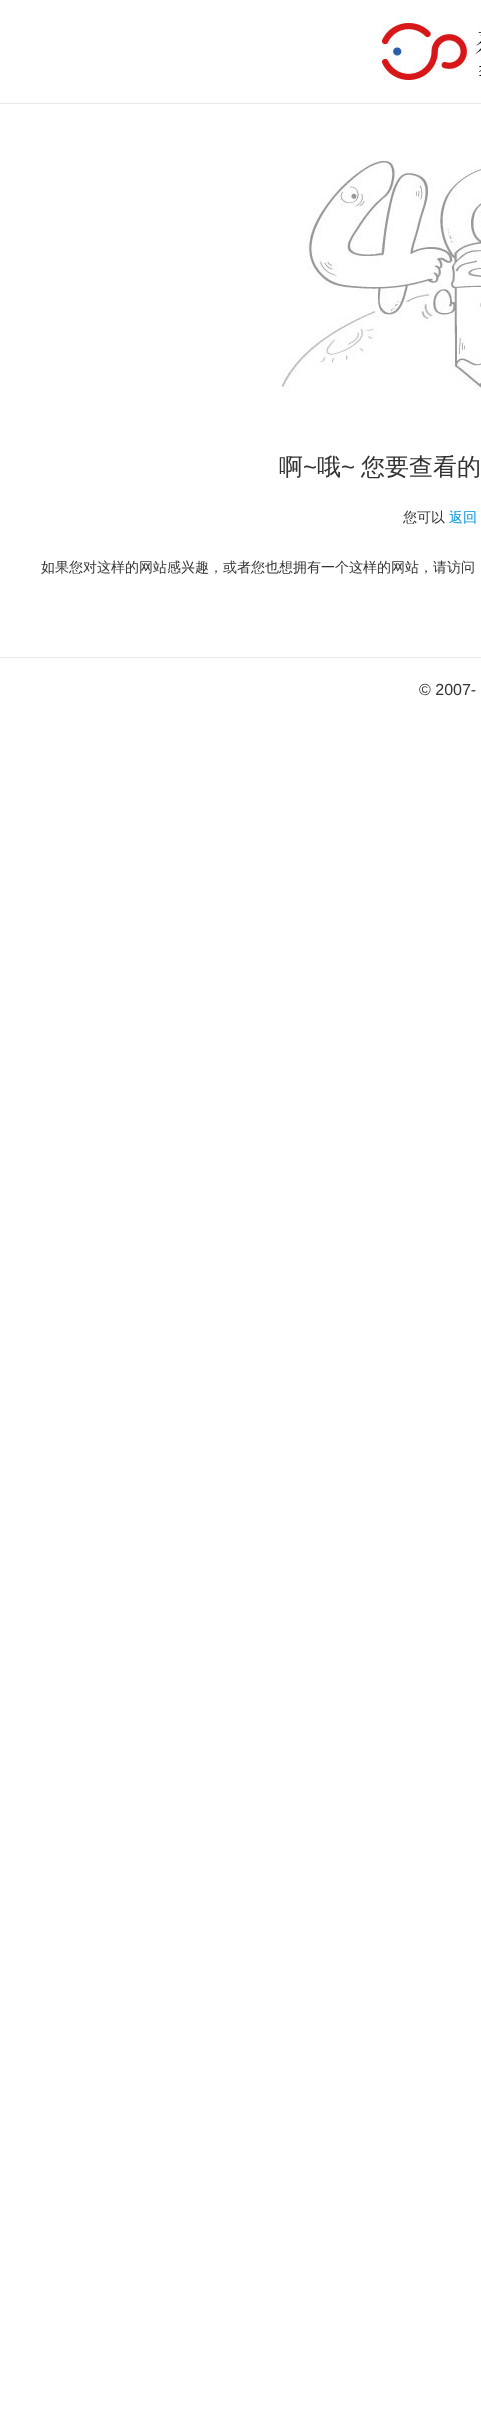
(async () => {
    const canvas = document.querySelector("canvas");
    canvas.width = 481;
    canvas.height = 2430;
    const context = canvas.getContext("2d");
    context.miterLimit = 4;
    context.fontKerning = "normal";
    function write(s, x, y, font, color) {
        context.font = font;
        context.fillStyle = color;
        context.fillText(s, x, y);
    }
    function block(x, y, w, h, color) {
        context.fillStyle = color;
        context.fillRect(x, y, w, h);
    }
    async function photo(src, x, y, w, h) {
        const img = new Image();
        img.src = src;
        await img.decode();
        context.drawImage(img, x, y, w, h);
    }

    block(0, 0, 481, 2430, "rgb(255, 255, 255)");
    block(0, 103, 481, 1, "rgb(233, 233, 233)");
    await photo("media/1.png", 382, 16, 99, 64);
    await photo("media/2.png", 281, 160, 200, 232);
    write("啊", 279, 475, "500 24px WenQuanYi Zen Hei", "rgb(51, 51, 51)");
    write("~", 303, 475, "24px Liberation Sans", "rgb(51, 51, 51)");
    write("哦", 317, 475, "500 24px WenQuanYi Zen Hei", "rgb(51, 51, 51)");
    write("~", 341, 475, "24px Liberation Sans", "rgb(51, 51, 51)");
    write("您要查看的", 361, 475, "500 24px WenQuanYi Zen Hei", "rgb(51, 51, 51)");
    write("您可以", 403, 522, "500 14px WenQuanYi Zen Hei", "rgb(51, 51, 51)");
    write("返回", 449, 522, "500 14px WenQuanYi Zen Hei", "rgb(0, 148, 224)");
    write("如果您对这样的网站感兴趣，或者您也想拥有一个这样的网站，请访问", 41, 572, "500 14px WenQuanYi Zen Hei", "rgb(51, 51, 51)");
    block(0, 657, 481, 1, "rgb(233, 233, 233)");
    write("© 2007-", 419, 695, "16px Liberation Sans", "rgb(51, 51, 51)");
})();
